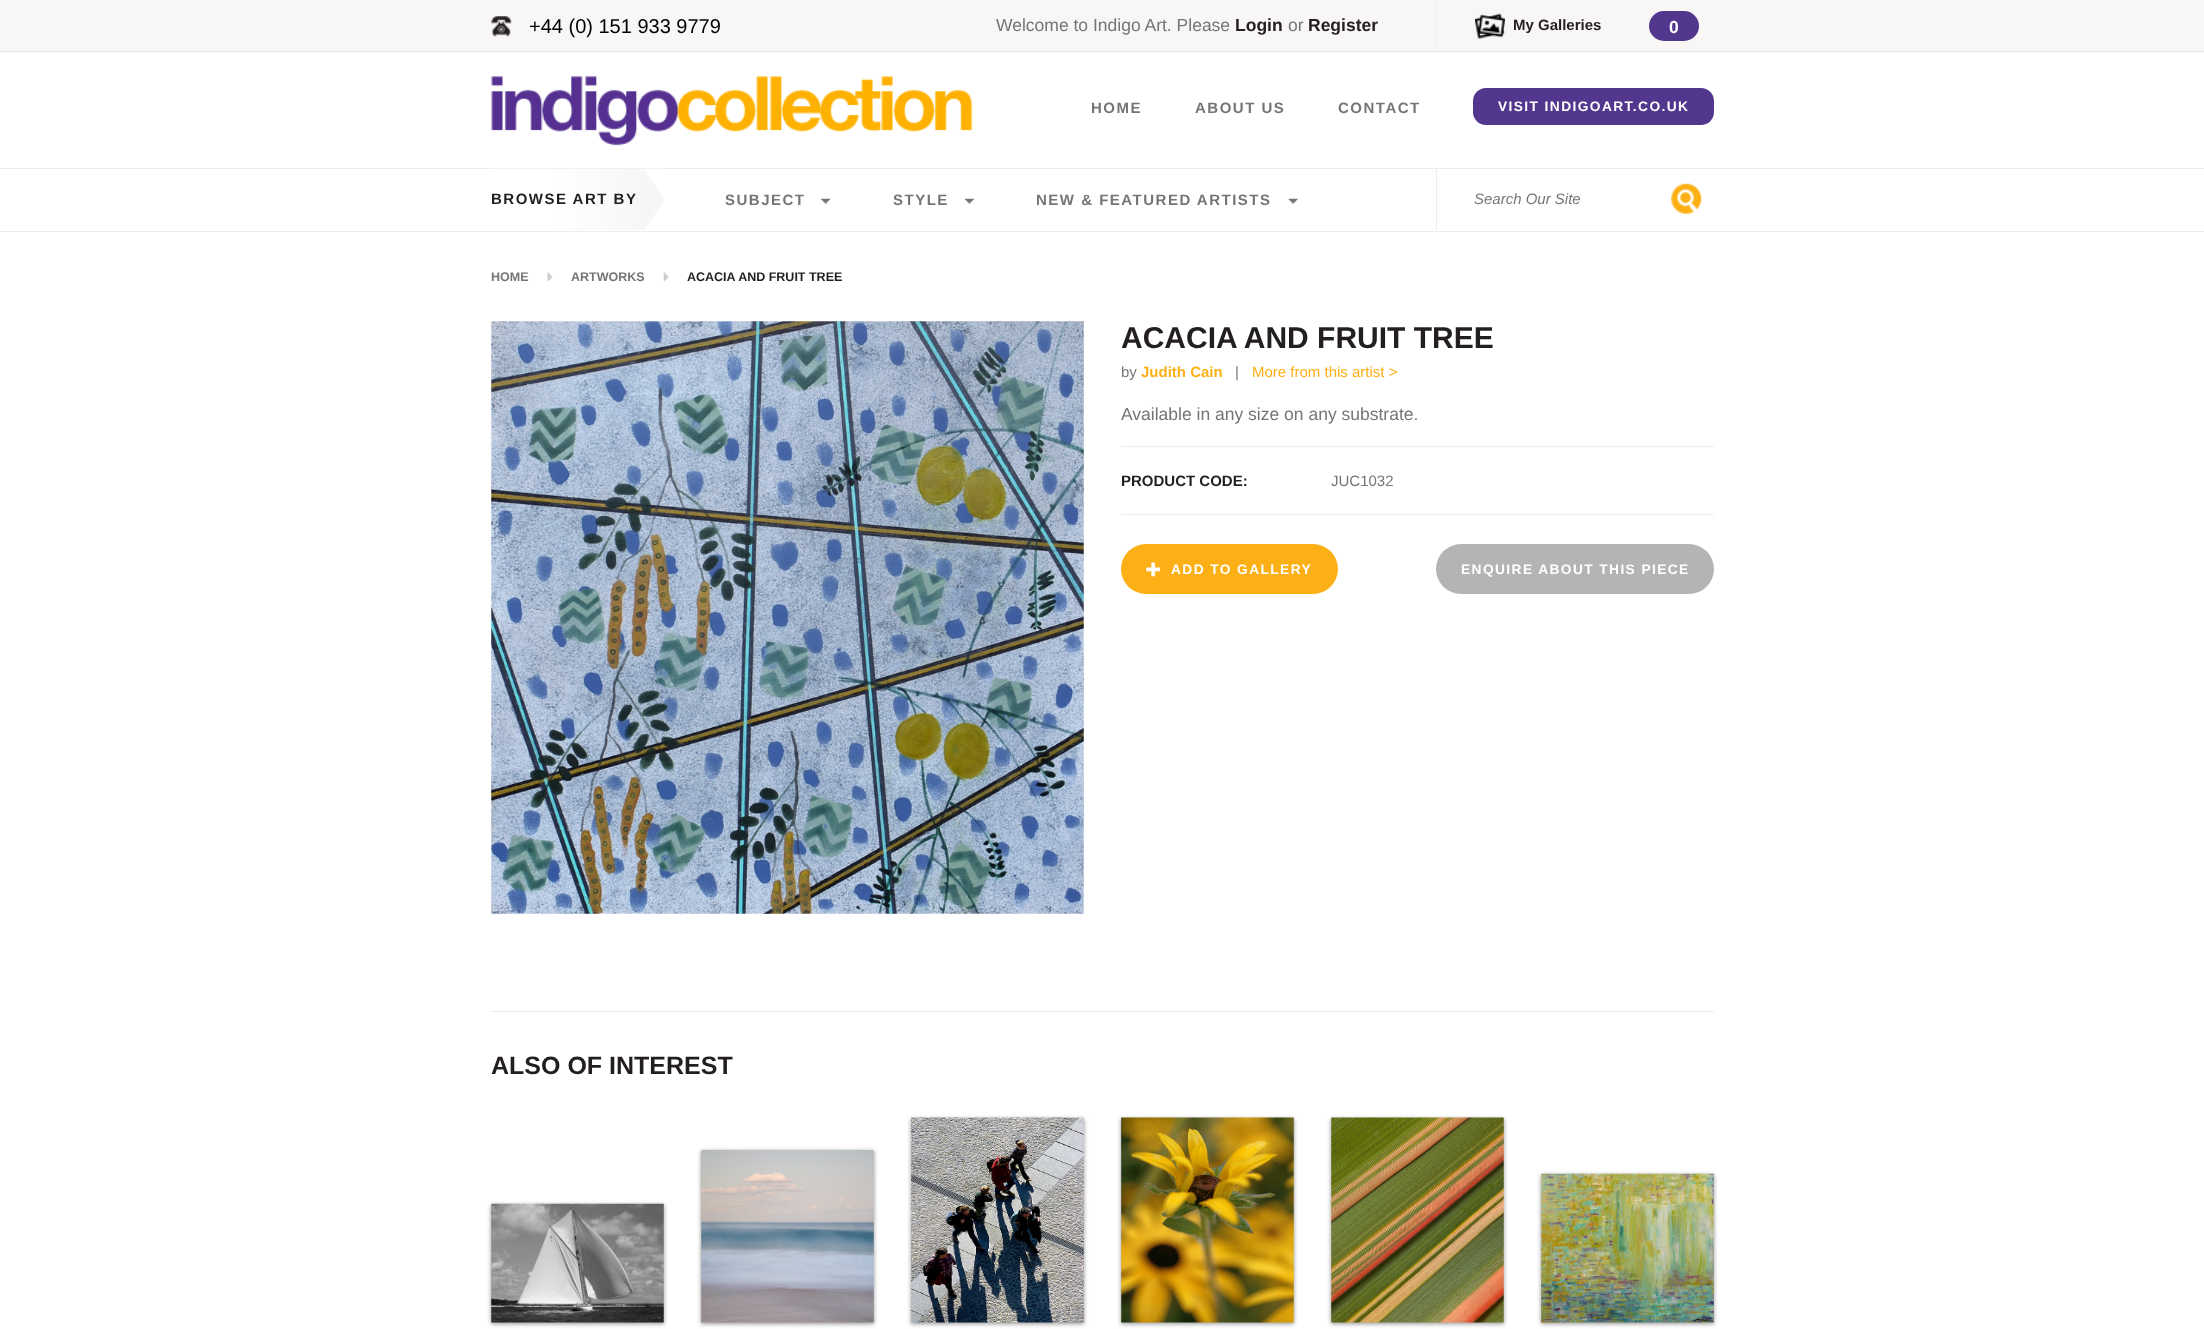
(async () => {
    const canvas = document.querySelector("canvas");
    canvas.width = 2204;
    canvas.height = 1329;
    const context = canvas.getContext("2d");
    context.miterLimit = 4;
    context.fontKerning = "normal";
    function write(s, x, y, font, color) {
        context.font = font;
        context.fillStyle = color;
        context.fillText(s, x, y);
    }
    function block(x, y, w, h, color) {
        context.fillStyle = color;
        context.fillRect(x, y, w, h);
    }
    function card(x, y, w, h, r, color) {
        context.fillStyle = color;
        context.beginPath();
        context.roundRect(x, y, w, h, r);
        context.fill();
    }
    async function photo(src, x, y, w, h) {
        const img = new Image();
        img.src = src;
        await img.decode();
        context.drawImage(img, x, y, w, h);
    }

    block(0, 0, 2204, 1329, "rgb(248, 247, 245)");
    block(0, 51, 2204, 1, "rgb(235, 234, 231)");
    await photo("media/1.png", 491, 16, 21, 21);
    write("+44 (0) 151 933 9779", 529, 33, "20px Liberation Sans", "rgb(0, 0, 0)");
    write("Welcome to Indigo Art. Please", 996, 31, "17.5px Liberation Sans", "rgb(117, 117, 117)");
    write("Login", 1235, 31, "bold 17.5px Liberation Sans", "rgb(35, 31, 32)");
    write("or", 1288, 31, "17.5px Liberation Sans", "rgb(117, 117, 117)");
    write("Register", 1308, 31, "bold 17.5px Liberation Sans", "rgb(35, 31, 32)");
    block(1436, 0, 1, 51, "rgb(238, 237, 235)");
    await photo("media/2.png", 1475, 13, 30, 26);
    write("My Galleries", 1513, 30, "bold 15px Liberation Sans", "rgb(35, 31, 32)");
    card(1649, 11, 50, 30, 15, "rgb(83, 54, 142)");
    write("0", 1669, 33, "bold 17.5px Liberation Sans", "rgb(255, 255, 255)");
    block(0, 53, 2204, 115, "rgb(255, 255, 255)");
    await photo("media/3.png", 491, 76, 482, 70);
    context.letterSpacing = "1.5px";
    write("HOME", 1091, 113, "bold 15px Liberation Sans", "rgb(117, 117, 117)");
    write("ABOUT US", 1195, 113, "bold 15px Liberation Sans", "rgb(117, 117, 117)");
    write("CONTACT", 1338, 113, "bold 15px Liberation Sans", "rgb(117, 117, 117)");
    card(1473, 88, 241, 37, 13, "rgb(83, 54, 142)");
    context.letterSpacing = "1.4px";
    write("VISIT INDIGOART.CO.UK", 1498, 111, "bold 13.75px Liberation Sans", "rgb(255, 255, 255)");
    block(0, 169, 2204, 1160, "rgb(255, 255, 255)");
    block(0, 168, 2204, 1, "rgb(238, 237, 235)");
    block(0, 231, 2204, 1, "rgb(238, 237, 235)");
    await photo("media/4.png", 492, 168, 172, 62);
    context.letterSpacing = "1.5px";
    write("BROWSE ART BY", 491, 204, "bold 15px Liberation Sans", "rgb(35, 31, 32)");
    await photo("media/5.png", 821, 198, 9, 6);
    write("SUBJECT", 725, 205, "bold 15px Liberation Sans", "rgb(117, 117, 117)");
    await photo("media/6.png", 965, 198, 9, 6);
    write("STYLE", 893, 205, "bold 15px Liberation Sans", "rgb(117, 117, 117)");
    await photo("media/7.png", 1288, 198, 10, 6);
    write("NEW & FEATURED ARTISTS", 1036, 205, "bold 15px Liberation Sans", "rgb(117, 117, 117)");
    block(1436, 169, 1, 61, "rgb(238, 237, 235)");
    context.letterSpacing = "0px";
    write("Search Our Site", 1474, 204, "italic 15px Liberation Sans", "rgb(117, 117, 117)");
    await photo("media/8.png", 1671, 183, 31, 31);
    write("HOME", 491, 281, "bold 12.5px Liberation Sans", "rgb(117, 117, 117)");
    await photo("media/9.png", 547, 272, 6, 10);
    write("ARTWORKS", 571, 281, "bold 12.5px Liberation Sans", "rgb(117, 117, 117)");
    await photo("media/10.png", 663, 272, 6, 10);
    write("ACACIA AND FRUIT TREE", 687, 281, "bold 12.5px Liberation Sans", "rgb(35, 31, 32)");
    await photo("media/11.png", 491, 321, 593, 593);
    write("ACACIA AND FRUIT TREE", 1121, 348, "bold 30px Liberation Sans", "rgb(35, 31, 32)");
    write("by", 1121, 377, "15px Liberation Sans", "rgb(117, 117, 117)");
    write("Judith Cain", 1141, 377, "bold 15px Liberation Sans", "rgb(252, 176, 22)");
    write("|", 1235, 377, "15px Liberation Sans", "rgb(117, 117, 117)");
    write("More from this artist >", 1252, 377, "15px Liberation Sans", "rgb(252, 176, 22)");
    write("Available in any size on any substrate.", 1121, 420, "17.5px Liberation Sans", "rgb(117, 117, 117)");
    block(1121, 446, 593, 1, "rgb(238, 237, 235)");
    block(1121, 514, 593, 1, "rgb(238, 237, 235)");
    write("PRODUCT CODE:", 1121, 486, "bold 15px Liberation Sans", "rgb(35, 31, 32)");
    write("JUC1032", 1331, 486, "15px Liberation Sans", "rgb(117, 117, 117)");
    card(1121, 544, 217, 50, 25, "rgb(252, 176, 22)");
    await photo("media/12.png", 1146, 562, 14, 15);
    context.letterSpacing = "1.4px";
    write("ADD TO GALLERY", 1171, 574, "bold 13.75px Liberation Sans", "rgb(255, 255, 255)");
    card(1436, 544, 278, 50, 25, "rgb(180, 180, 180)");
    write("ENQUIRE ABOUT THIS PIECE", 1461, 574, "bold 13.75px Liberation Sans", "rgb(255, 255, 255)");
    block(491, 1011, 1223, 1, "rgb(238, 237, 235)");
    context.letterSpacing = "0px";
    write("ALSO OF INTEREST", 491, 1074, "bold 25px Liberation Sans", "rgb(35, 31, 32)");
    context.fillStyle = "rgb(153, 153, 153)";
    context.filter = "blur(2px)";
    context.beginPath();
    context.rect(491, 1205, 173, 119);
    context.fill();
    context.filter = "none";
    await photo("media/13.png", 491, 1203, 173, 120);
    context.filter = "blur(2px)";
    context.beginPath();
    context.rect(701, 1151, 173, 173);
    context.fill();
    context.filter = "none";
    await photo("media/14.png", 701, 1150, 173, 173);
    context.filter = "blur(2px)";
    context.beginPath();
    context.rect(911, 1119, 173, 205);
    context.fill();
    context.filter = "none";
    await photo("media/15.png", 911, 1117, 173, 206);
    context.filter = "blur(2px)";
    context.beginPath();
    context.rect(1121, 1119, 173, 205);
    context.fill();
    context.filter = "none";
    await photo("media/16.png", 1121, 1117, 173, 206);
    context.filter = "blur(2px)";
    context.beginPath();
    context.rect(1331, 1119, 173, 205);
    context.fill();
    context.filter = "none";
    await photo("media/17.png", 1331, 1117, 173, 206);
    context.filter = "blur(2px)";
    context.beginPath();
    context.rect(1541, 1175, 173, 149);
    context.fill();
    context.filter = "none";
    await photo("media/18.png", 1541, 1173, 173, 150);
})();
